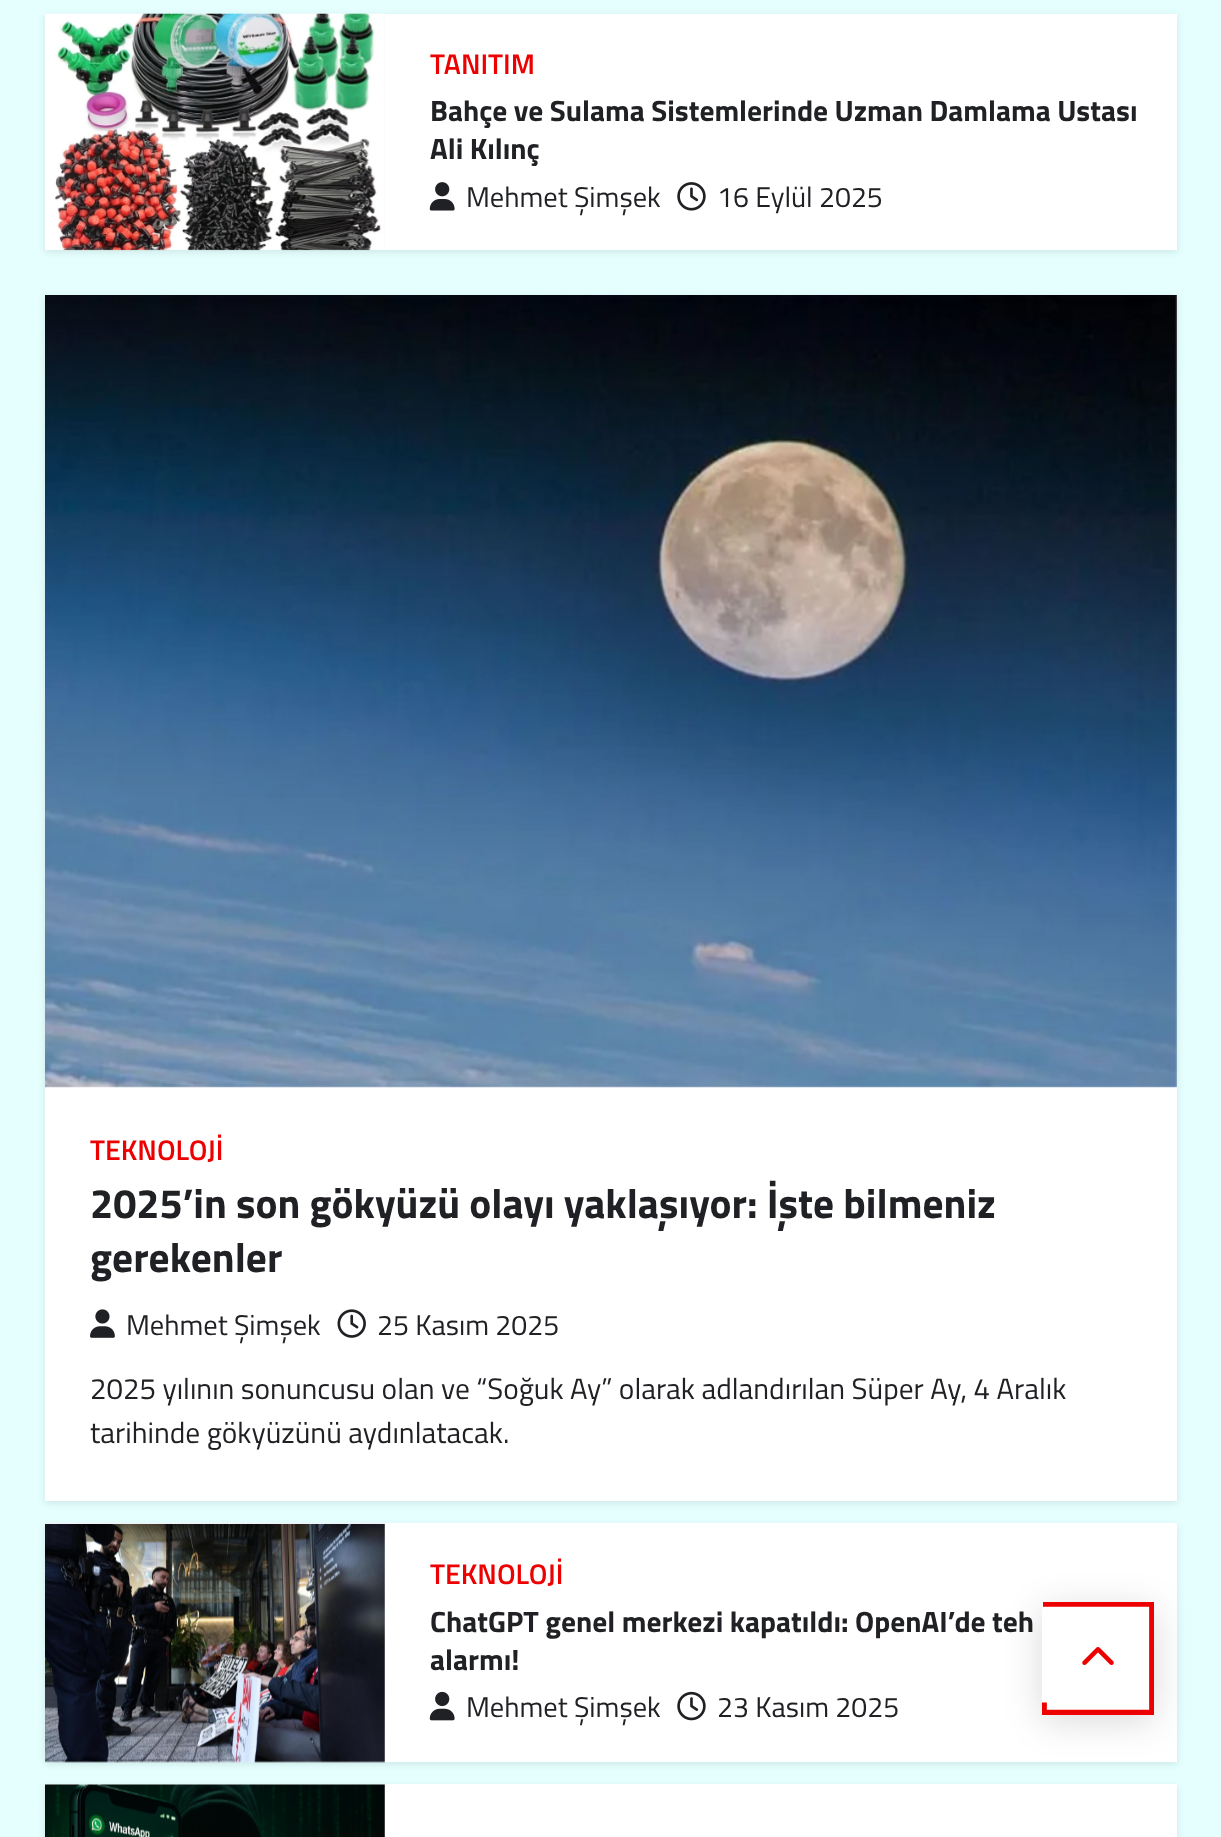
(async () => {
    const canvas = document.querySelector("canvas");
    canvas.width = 1221;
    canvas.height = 1837;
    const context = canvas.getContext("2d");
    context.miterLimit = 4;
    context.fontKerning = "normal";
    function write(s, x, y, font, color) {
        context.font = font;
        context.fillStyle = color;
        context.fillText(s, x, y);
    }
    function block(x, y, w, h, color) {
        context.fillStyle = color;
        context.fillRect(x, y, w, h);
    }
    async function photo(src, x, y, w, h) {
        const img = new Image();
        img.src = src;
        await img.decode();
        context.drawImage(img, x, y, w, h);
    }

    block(0, 0, 1221, 1837, "rgb(229, 255, 255)");
    context.fillStyle = "rgba(0, 0, 0, 0.1)";
    context.filter = "blur(3.5px)";
    context.beginPath();
    context.rect(45, 16, 1132, 236);
    context.fill();
    context.filter = "none";
    block(385, 14, 792, 236, "rgb(255, 255, 255)");
    block(45, 14, 340, 236, "rgb(240, 242, 247)");
    await photo("media/1.png", 45, 13, 340, 238);
    write("TANITIM", 430, 74, "600 28.5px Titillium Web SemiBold", "rgb(236, 0, 0)");
    write("Bahçe ve Sulama Sistemlerinde Uzman Damlama Ustası", 430, 121, "bold 29.45px Titillium Web", "rgb(32, 33, 36)");
    write("Ali Kılınç", 430, 159, "bold 29.45px Titillium Web", "rgb(32, 33, 36)");
    await photo("media/2.png", 429, 182, 26, 29);
    write("Mehmet Şimşek", 466, 207, "28.5px Titillium Web", "rgb(32, 33, 36)");
    await photo("media/3.png", 677, 182, 29, 29);
    write("16 Eylül 2025", 717, 207, "28.5px Titillium Web", "rgb(32, 33, 36)");
    context.fillStyle = "rgba(0, 0, 0, 0.1)";
    context.filter = "blur(3.5px)";
    context.beginPath();
    context.rect(45, 297, 1132, 1206);
    context.fill();
    context.filter = "none";
    block(45, 1087, 1132, 414, "rgb(255, 255, 255)");
    block(45, 295, 1132, 792, "rgb(240, 242, 247)");
    await photo("media/4.png", 45, 295, 1132, 793);
    write("TEKNOLOJİ", 90, 1160, "600 28.5px Titillium Web SemiBold", "rgb(236, 0, 0)");
    write("2025’in son gökyüzü olayı yaklaşıyor: İşte bilmeniz", 90, 1218, "bold 41.4px Titillium Web", "rgb(32, 33, 36)");
    write("gerekenler", 90, 1272, "bold 41.4px Titillium Web", "rgb(32, 33, 36)");
    await photo("media/5.png", 90, 1309, 25, 29);
    write("Mehmet Şimşek", 126, 1335, "28.5px Titillium Web", "rgb(32, 33, 36)");
    await photo("media/6.png", 337, 1309, 29, 29);
    write("25 Kasım 2025", 377, 1335, "28.5px Titillium Web", "rgb(32, 33, 36)");
    write("2025 yılının sonuncusu olan ve “Soğuk Ay” olarak adlandırılan Süper Ay, 4 Aralık", 90, 1399, "29.45px Titillium Web", "rgb(32, 33, 36)");
    write("tarihinde gökyüzünü aydınlatacak.", 90, 1443, "29.45px Titillium Web", "rgb(32, 33, 36)");
    context.fillStyle = "rgba(0, 0, 0, 0.1)";
    context.filter = "blur(3.5px)";
    context.beginPath();
    context.rect(45, 1526, 1132, 238);
    context.fill();
    context.filter = "none";
    block(385, 1523, 792, 239, "rgb(255, 255, 255)");
    block(45, 1523, 340, 239, "rgb(240, 242, 247)");
    await photo("media/7.png", 45, 1524, 340, 239);
    write("TEKNOLOJİ", 430, 1584, "600 28.5px Titillium Web SemiBold", "rgb(236, 0, 0)");
    write("ChatGPT genel merkezi kapatıldı: OpenAI’de teh", 430, 1632, "bold 29.45px Titillium Web", "rgb(32, 33, 36)");
    write("alarmı!", 430, 1670, "bold 29.45px Titillium Web", "rgb(32, 33, 36)");
    await photo("media/8.png", 429, 1691, 26, 30);
    write("Mehmet Şimşek", 466, 1717, "28.5px Titillium Web", "rgb(32, 33, 36)");
    await photo("media/9.png", 677, 1691, 29, 30);
    write("23 Kasım 2025", 717, 1717, "28.5px Titillium Web", "rgb(32, 33, 36)");
    context.fillStyle = "rgba(0, 0, 0, 0.1)";
    context.filter = "blur(3.5px)";
    context.beginPath();
    context.rect(45, 1787, 1132, 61);
    context.fill();
    context.filter = "none";
    block(385, 1784, 792, 53, "rgb(255, 255, 255)");
    block(45, 1784, 340, 53, "rgb(240, 242, 247)");
    await photo("media/10.png", 45, 1784, 340, 53);
    context.fillStyle = "rgba(0, 0, 0, 0.15)";
    context.filter = "blur(18px)";
    context.beginPath();
    context.rect(1042, 1609, 112, 112);
    context.fill();
    context.filter = "none";
    block(1042, 1602, 108, 108, "rgb(255, 255, 255)");
    await photo("media/11.png", 1082, 1647, 32, 18);
    context.save();
    context.beginPath();
    context.rect(1042, 1602, 112, 113);
    context.clip();
    context.beginPath();
    context.moveTo(1043, 1603);
    context.lineTo(1153, 1603);
    context.lineTo(1153, 1713.5);
    context.lineTo(1043, 1713.5);
    context.lineTo(1043, 1702.5);
    context.strokeStyle = "rgb(236, 0, 0)";
    context.lineWidth = 7.7;
    context.stroke();
    context.restore();
})();
